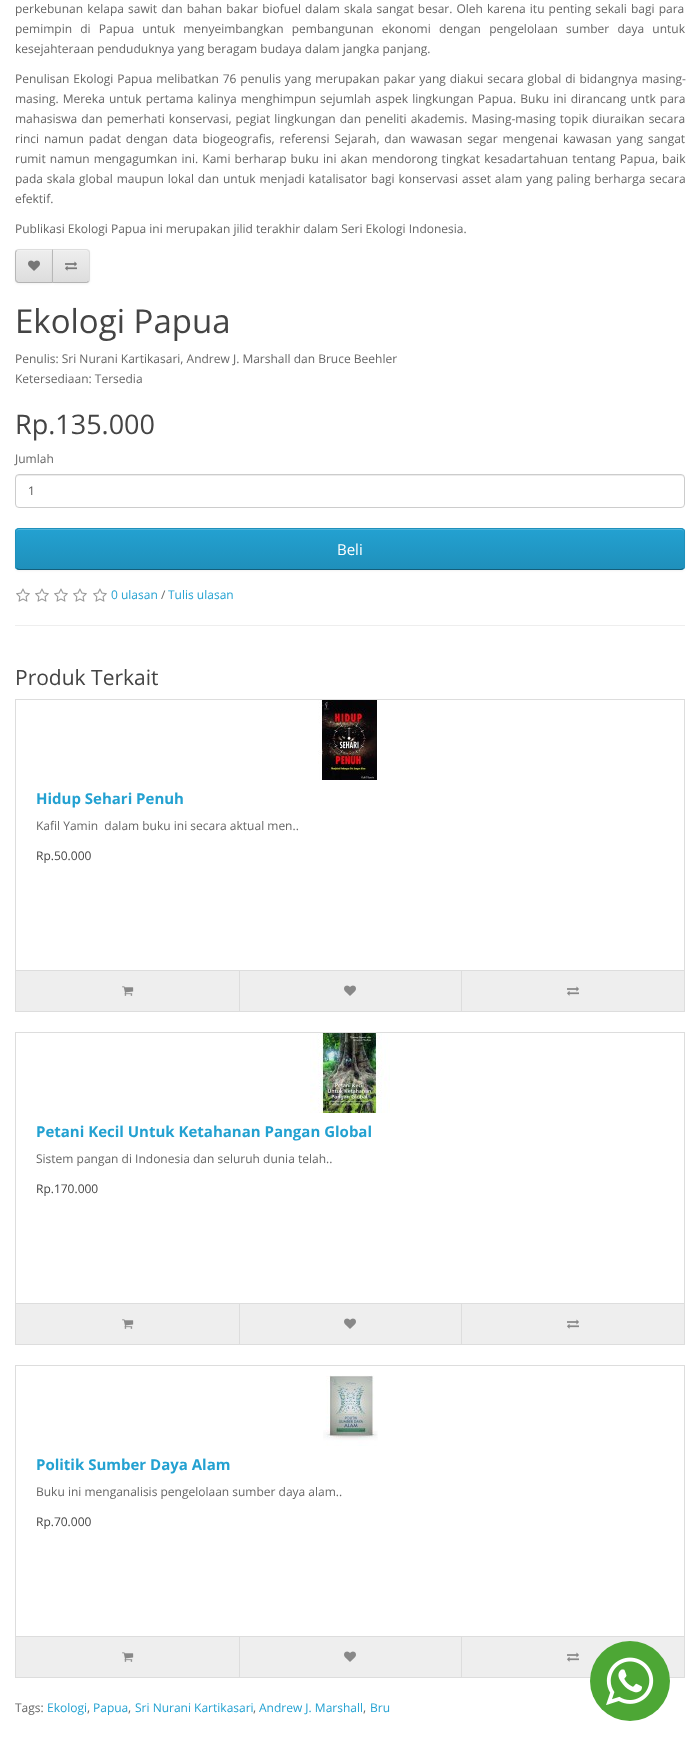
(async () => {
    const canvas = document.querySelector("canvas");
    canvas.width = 700;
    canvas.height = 1751;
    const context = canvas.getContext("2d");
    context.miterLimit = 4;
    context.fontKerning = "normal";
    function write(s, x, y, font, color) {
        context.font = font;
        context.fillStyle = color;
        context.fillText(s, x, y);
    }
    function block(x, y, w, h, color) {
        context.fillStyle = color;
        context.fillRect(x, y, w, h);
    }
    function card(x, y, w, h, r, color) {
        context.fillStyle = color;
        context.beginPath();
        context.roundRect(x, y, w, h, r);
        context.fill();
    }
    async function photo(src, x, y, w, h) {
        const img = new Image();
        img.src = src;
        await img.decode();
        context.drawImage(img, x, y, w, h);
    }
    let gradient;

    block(0, 0, 700, 1751, "rgb(255, 255, 255)");
    context.wordSpacing = "1px";
    write("perkebunan kelapa sawit dan bahan bakar biofuel dalam skala sangat besar. Oleh karena itu penting sekali bagi para", 15, 13, "12px Open Sans", "rgb(102, 102, 102)");
    context.wordSpacing = "5.1px";
    write("pemimpin di Papua untuk menyeimbangkan pembangunan ekonomi dengan pengelolaan sumber daya untuk", 15, 33, "12px Open Sans", "rgb(102, 102, 102)");
    context.wordSpacing = "0px";
    write("kesejahteraan penduduknya yang beragam budaya dalam jangka panjang.", 15, 53, "12px Open Sans", "rgb(102, 102, 102)");
    context.wordSpacing = "0.75px";
    write("Penulisan Ekologi Papua melibatkan 76 penulis yang merupakan pakar yang diakui secara global di bidangnya masing-", 15, 83, "12px Open Sans", "rgb(102, 102, 102)");
    context.wordSpacing = "1px";
    write("masing. Mereka untuk pertama kalinya menghimpun sejumlah aspek lingkungan Papua. Buku ini dirancang untk para", 15, 103, "12px Open Sans", "rgb(102, 102, 102)");
    context.wordSpacing = "0.9px";
    write("mahasiswa dan pemerhati konservasi, pegiat lingkungan dan peneliti akademis. Masing-masing topik diuraikan secara", 15, 123, "12px Open Sans", "rgb(102, 102, 102)");
    context.wordSpacing = "1.75px";
    write("rinci namun padat dengan data biogeografis, referensi Sejarah, dan wawasan segar mengenai kawasan yang sangat", 15, 143, "12px Open Sans", "rgb(102, 102, 102)");
    context.wordSpacing = "1px";
    write("rumit namun mengagumkan ini. Kami berharap buku ini akan mendorong tingkat kesadartahuan tentang Papua, baik", 15, 163, "12px Open Sans", "rgb(102, 102, 102)");
    context.wordSpacing = "0.7px";
    write("pada skala global maupun lokal dan untuk menjadi katalisator bagi konservasi asset alam yang paling berharga secara", 15, 183, "12px Open Sans", "rgb(102, 102, 102)");
    context.wordSpacing = "0px";
    write("efektif.", 15, 203, "12px Open Sans", "rgb(102, 102, 102)");
    write("Publikasi Ekologi Papua ini merupakan jilid terakhir dalam Seri Ekologi Indonesia.", 15, 233, "12px Open Sans", "rgb(102, 102, 102)");
    context.fillStyle = "rgba(0, 0, 0, 0.05)";
    context.filter = "blur(1px)";
    context.beginPath();
    context.roundRect(15, 250, 38, 34, 4);
    context.fill();
    context.filter = "none";
    context.save();
    context.beginPath();
    context.roundRect(15, 249, 38, 34, [4, 0, 0, 4]);
    context.clip();
    gradient = context.createLinearGradient(34, 250, 34, 282);
    gradient.addColorStop(0, "rgb(238, 238, 238)");
    gradient.addColorStop(1, "rgb(221, 221, 221)");
    context.fillStyle = gradient;
    context.fillRect(15, 250, 37, 32);
    context.restore();
    context.fillStyle = "rgb(241, 241, 241)";
    context.beginPath();
    context.moveTo(19, 251);
    context.lineTo(52, 251);
    context.lineTo(52, 250);
    context.lineTo(19, 250);
    context.bezierCurveTo(17.5, 250, 16, 251.5, 16, 253);
    context.lineTo(16, 254);
    context.bezierCurveTo(16, 252, 17, 251, 19, 251);
    context.closePath();
    context.fill();
    context.fillStyle = "rgb(221, 221, 221)";
    context.beginPath();
    context.moveTo(19, 249);
    context.bezierCurveTo(18, 249, 17, 249.5, 16, 250);
    context.lineTo(17, 251);
    context.bezierCurveTo(17.5, 250.5, 18, 250, 19, 250);
    context.lineTo(52, 250);
    context.lineTo(53, 249);
    context.closePath();
    context.fill();
    context.fillStyle = "rgb(179, 179, 179)";
    context.beginPath();
    context.moveTo(53, 283);
    context.lineTo(52, 282);
    context.lineTo(19, 282);
    context.bezierCurveTo(18, 282, 17.5, 281.5, 17, 281);
    context.lineTo(16, 282);
    context.bezierCurveTo(17, 282.5, 18, 283, 19, 283);
    context.closePath();
    context.fill();
    context.fillStyle = "rgb(183, 183, 183)";
    context.beginPath();
    context.moveTo(15, 253);
    context.lineTo(15, 279);
    context.bezierCurveTo(15, 280, 15.5, 281, 16, 282);
    context.lineTo(17, 281);
    context.bezierCurveTo(16.5, 280.5, 16, 280, 16, 279);
    context.lineTo(16, 253);
    context.bezierCurveTo(16, 252, 16.5, 251.5, 17, 251);
    context.lineTo(16, 250);
    context.bezierCurveTo(15.5, 251, 15, 252, 15, 253);
    context.closePath();
    context.fill();
    await photo("media/1.png", 28, 260, 12, 11);
    context.fillStyle = "rgba(0, 0, 0, 0.05)";
    context.filter = "blur(1px)";
    context.beginPath();
    context.roundRect(52, 250, 38, 34, 4);
    context.fill();
    context.filter = "none";
    context.save();
    context.beginPath();
    context.roundRect(52, 249, 38, 34, [0, 4, 4, 0]);
    context.clip();
    gradient = context.createLinearGradient(71, 250, 71, 282);
    gradient.addColorStop(0, "rgb(238, 238, 238)");
    gradient.addColorStop(1, "rgb(221, 221, 221)");
    context.fillStyle = gradient;
    context.fillRect(53, 250, 37, 32);
    context.restore();
    context.fillStyle = "rgb(241, 241, 241)";
    context.beginPath();
    context.moveTo(53, 251);
    context.lineTo(86, 251);
    context.bezierCurveTo(88, 251, 89, 252, 89, 254);
    context.lineTo(89, 253);
    context.bezierCurveTo(89, 251.5, 87.5, 250, 86, 250);
    context.lineTo(53, 250);
    context.closePath();
    context.fill();
    context.fillStyle = "rgb(221, 221, 221)";
    context.beginPath();
    context.moveTo(52, 249);
    context.lineTo(53, 250);
    context.lineTo(86, 250);
    context.bezierCurveTo(87, 250, 87.5, 250.5, 88, 251);
    context.lineTo(89, 250);
    context.bezierCurveTo(88, 249.5, 87, 249, 86, 249);
    context.closePath();
    context.fill();
    context.beginPath();
    context.moveTo(90, 279);
    context.lineTo(90, 253);
    context.bezierCurveTo(90, 252, 89.5, 251, 89, 250);
    context.lineTo(88, 251);
    context.bezierCurveTo(88.5, 251.5, 89, 252, 89, 253);
    context.lineTo(89, 279);
    context.bezierCurveTo(89, 280, 88.5, 280.5, 88, 281);
    context.lineTo(89, 282);
    context.bezierCurveTo(89.5, 281, 90, 280, 90, 279);
    context.closePath();
    context.fill();
    context.fillStyle = "rgb(179, 179, 179)";
    context.beginPath();
    context.moveTo(86, 283);
    context.bezierCurveTo(87, 283, 88, 282.5, 89, 282);
    context.lineTo(88, 281);
    context.bezierCurveTo(87.5, 281.5, 87, 282, 86, 282);
    context.lineTo(53, 282);
    context.lineTo(52, 283);
    context.closePath();
    context.fill();
    context.fillStyle = "rgb(183, 183, 183)";
    context.beginPath();
    context.moveTo(52, 249);
    context.lineTo(52, 283);
    context.lineTo(53, 282);
    context.lineTo(53, 250);
    context.closePath();
    context.fill();
    await photo("media/2.png", 65, 261, 12, 10);
    write("Ekologi Papua", 15, 333, "33px Open Sans", "rgb(68, 68, 68)");
    write("Penulis: Sri Nurani Kartikasari, Andrew J. Marshall dan Bruce Beehler", 15, 363, "12px Open Sans", "rgb(102, 102, 102)");
    write("Ketersediaan: Tersedia", 15, 383, "12px Open Sans", "rgb(102, 102, 102)");
    write("Rp.135.000", 15, 434, "27px Open Sans", "rgb(68, 68, 68)");
    write("Jumlah", 15, 463, "12px Open Sans", "rgb(102, 102, 102)");
    context.fillStyle = "rgb(236, 236, 236)";
    context.beginPath();
    context.moveTo(19, 476);
    context.lineTo(681, 476);
    context.bezierCurveTo(683, 476, 684, 477, 684, 479);
    context.lineTo(684, 478);
    context.bezierCurveTo(684, 476, 683, 475, 681, 475);
    context.lineTo(19, 475);
    context.bezierCurveTo(17, 475, 16, 476, 16, 478);
    context.lineTo(16, 479);
    context.bezierCurveTo(16, 477, 17, 476, 19, 476);
    context.closePath();
    context.fill();
    context.beginPath();
    context.roundRect(15.5, 474.5, 669, 33, 3.5);
    context.strokeStyle = "rgb(204, 204, 204)";
    context.stroke();
    write("1", 28, 495, "12px Open Sans", "rgb(85, 85, 85)");
    context.fillStyle = "rgba(0, 0, 0, 0.05)";
    context.filter = "blur(1px)";
    context.beginPath();
    context.roundRect(15, 529, 670, 42, 4);
    context.fill();
    context.filter = "none";
    card(15, 528, 670, 42, 4, "rgb(34, 154, 200)");
    context.save();
    context.beginPath();
    context.roundRect(15, 528, 670, 42, 4);
    context.clip();
    gradient = context.createLinearGradient(350, 529, 350, 569);
    gradient.addColorStop(0, "rgb(35, 161, 209)");
    gradient.addColorStop(1, "rgb(31, 144, 187)");
    context.fillStyle = gradient;
    context.fillRect(15, 529, 670, 40);
    context.restore();
    context.fillStyle = "rgb(79, 180, 218)";
    context.beginPath();
    context.moveTo(19, 530);
    context.lineTo(681, 530);
    context.bezierCurveTo(683, 530, 684, 531, 684, 533);
    context.lineTo(684, 532);
    context.bezierCurveTo(684, 530, 683, 529, 681, 529);
    context.lineTo(19, 529);
    context.bezierCurveTo(17, 529, 16, 530, 16, 532);
    context.lineTo(16, 533);
    context.bezierCurveTo(16, 531, 17, 530, 19, 530);
    context.closePath();
    context.fill();
    context.beginPath();
    context.moveTo(683.5, 568.5);
    context.lineTo(681, 569.5);
    context.lineTo(19, 569.5);
    context.lineTo(16.5, 568.5);
    context.strokeStyle = "rgb(20, 94, 122)";
    context.stroke();
    context.beginPath();
    context.moveTo(16.5, 568.5);
    context.lineTo(15.5, 566.5);
    context.lineTo(15.5, 531);
    context.bezierCurveTo(16, 530, 17, 529, 18.5, 528.5);
    context.lineTo(681.5, 528.5);
    context.bezierCurveTo(683, 529, 684, 530, 684.5, 531);
    context.lineTo(684.5, 566.5);
    context.lineTo(683.5, 568.5);
    context.strokeStyle = "rgb(31, 144, 187)";
    context.stroke();
    write("Beli", 337, 555, "15px Open Sans", "rgb(255, 255, 255)");
    await photo("media/3.png", 16, 588, 14, 14);
    await photo("media/3.png", 35, 588, 14, 14);
    await photo("media/3.png", 54, 588, 14, 14);
    await photo("media/3.png", 73, 588, 14, 14);
    await photo("media/3.png", 93, 588, 14, 14);
    write("0 ulasan", 111, 599, "12px Open Sans", "rgb(35, 161, 209)");
    write("/", 161, 599, "12px Open Sans", "rgb(102, 102, 102)");
    write("Tulis ulasan", 168, 599, "12px Open Sans", "rgb(35, 161, 209)");
    block(15, 625, 670, 1, "rgb(238, 238, 238)");
    write("Produk Terkait", 15, 685, "21px Open Sans", "rgb(68, 68, 68)");
    context.strokeStyle = "rgb(221, 221, 221)";
    context.strokeRect(15.5, 699.5, 669, 312);
    await photo("media/4.png", 318, 700, 59, 80);
    write("Hidup Sehari Penuh", 36, 804, "bold 15px Open Sans", "rgb(35, 161, 209)");
    write("Kafil Yamin  dalam buku ini secara aktual men..", 36, 830, "12px Open Sans", "rgb(102, 102, 102)");
    write("Rp.50.000", 36, 860, "12px Open Sans", "rgb(68, 68, 68)");
    block(16, 971, 668, 40, "rgb(238, 238, 238)");
    block(16, 970, 668, 1, "rgb(221, 221, 221)");
    await photo("media/5.png", 122, 986, 12, 10);
    block(239, 971, 1, 40, "rgb(221, 221, 221)");
    await photo("media/6.png", 344, 985, 12, 11);
    block(461, 971, 1, 40, "rgb(221, 221, 221)");
    await photo("media/7.png", 567, 986, 12, 10);
    context.strokeRect(15.5, 1032.5, 669, 312);
    await photo("media/8.png", 310, 1033, 80, 80);
    write("Petani Kecil Untuk Ketahanan Pangan Global", 36, 1137, "bold 15px Open Sans", "rgb(35, 161, 209)");
    write("Sistem pangan di Indonesia dan seluruh dunia telah..", 36, 1163, "12px Open Sans", "rgb(102, 102, 102)");
    write("Rp.170.000", 36, 1193, "12px Open Sans", "rgb(68, 68, 68)");
    block(16, 1304, 668, 40, "rgb(238, 238, 238)");
    block(16, 1303, 668, 1, "rgb(221, 221, 221)");
    await photo("media/5.png", 122, 1319, 12, 10);
    block(239, 1304, 1, 40, "rgb(221, 221, 221)");
    await photo("media/6.png", 344, 1318, 12, 11);
    block(461, 1304, 1, 40, "rgb(221, 221, 221)");
    await photo("media/7.png", 567, 1319, 12, 10);
    context.strokeRect(15.5, 1365.5, 669, 312);
    await photo("media/9.png", 323, 1375, 55, 71);
    write("Politik Sumber Daya Alam", 36, 1470, "bold 15px Open Sans", "rgb(35, 161, 209)");
    write("Buku ini menganalisis pengelolaan sumber daya alam..", 36, 1496, "12px Open Sans", "rgb(102, 102, 102)");
    write("Rp.70.000", 36, 1526, "12px Open Sans", "rgb(68, 68, 68)");
    block(16, 1637, 668, 40, "rgb(238, 238, 238)");
    block(16, 1636, 668, 1, "rgb(221, 221, 221)");
    await photo("media/5.png", 122, 1652, 12, 10);
    block(239, 1637, 1, 40, "rgb(221, 221, 221)");
    await photo("media/6.png", 344, 1651, 12, 11);
    block(461, 1637, 1, 40, "rgb(221, 221, 221)");
    await photo("media/7.png", 567, 1652, 12, 10);
    write("Tags:", 15, 1712, "12px Open Sans", "rgb(102, 102, 102)");
    write("Ekologi", 47, 1712, "12px Open Sans", "rgb(35, 161, 209)");
    write(",", 87, 1712, "12px Open Sans", "rgb(102, 102, 102)");
    write("Papua", 93, 1712, "12px Open Sans", "rgb(35, 161, 209)");
    write(",", 128, 1712, "12px Open Sans", "rgb(102, 102, 102)");
    write("Sri Nurani Kartikasari", 135, 1712, "12px Open Sans", "rgb(35, 161, 209)");
    write(",", 253, 1712, "12px Open Sans", "rgb(102, 102, 102)");
    write("Andrew J. Marshall", 259, 1712, "12px Open Sans", "rgb(35, 161, 209)");
    write(",", 363, 1712, "12px Open Sans", "rgb(102, 102, 102)");
    write("Bru", 370, 1712, "12px Open Sans", "rgb(35, 161, 209)");
    context.fillStyle = "rgb(77, 167, 53)";
    context.beginPath();
    context.arc(630, 1681, 40, 0, Math.PI * 2);
    context.fill();
    await photo("media/10.png", 606, 1657, 48, 48);
})();
